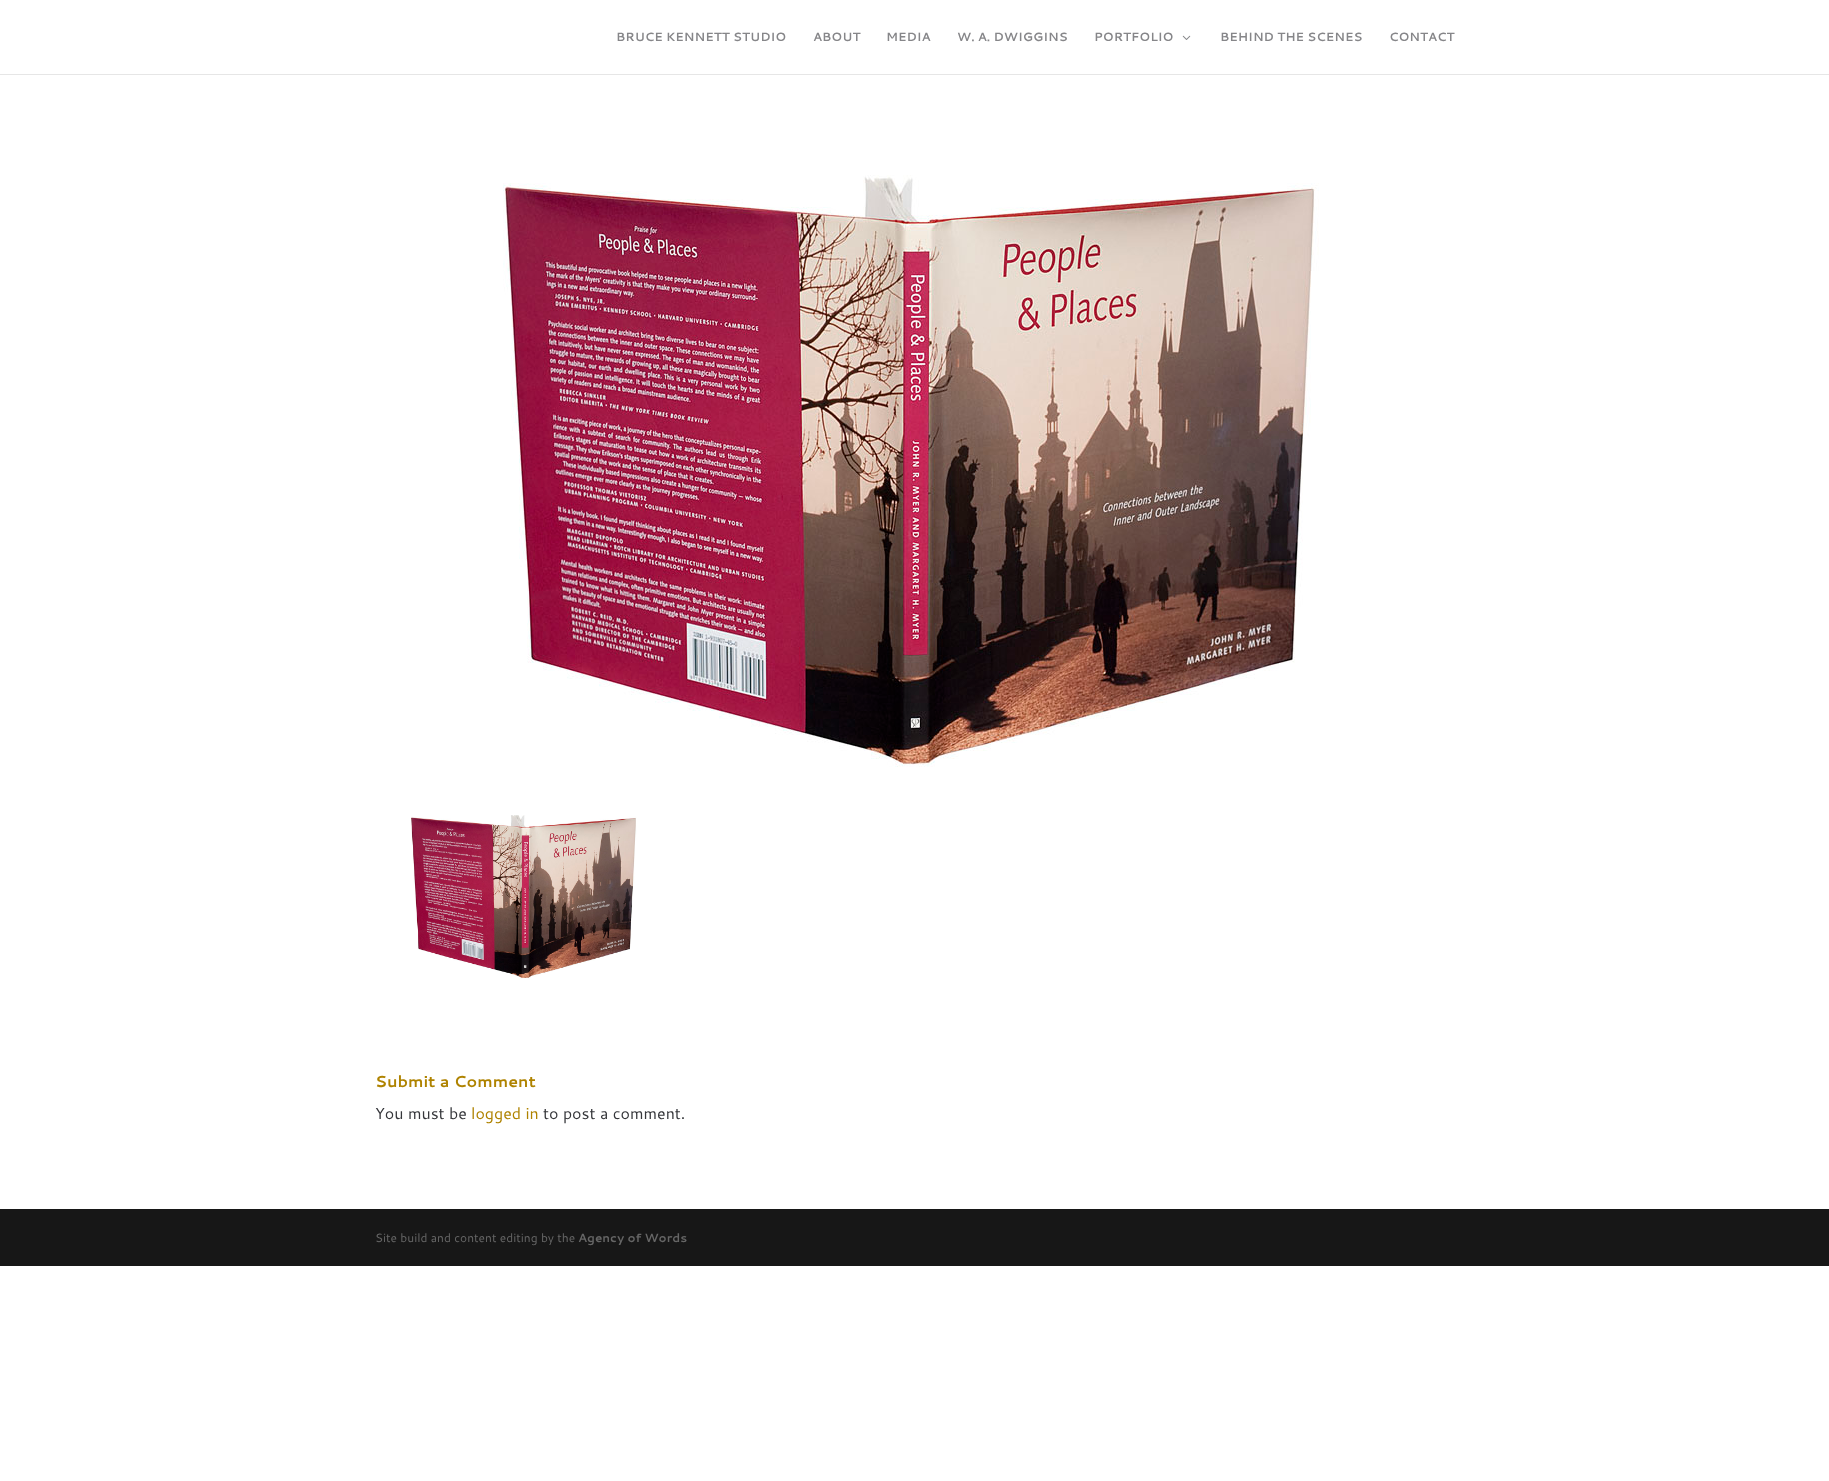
(async () => {
    const canvas = document.querySelector("canvas");
    canvas.width = 1829;
    canvas.height = 1481;
    const context = canvas.getContext("2d");
    context.miterLimit = 4;
    context.fontKerning = "normal";
    function write(s, x, y, font, color) {
        context.font = font;
        context.fillStyle = color;
        context.fillText(s, x, y);
    }
    function block(x, y, w, h, color) {
        context.fillStyle = color;
        context.fillRect(x, y, w, h);
    }
    async function photo(src, x, y, w, h) {
        const img = new Image();
        img.src = src;
        await img.decode();
        context.drawImage(img, x, y, w, h);
    }

    block(0, 0, 1829, 1481, "rgb(255, 255, 255)");
    block(0, 74, 1829, 1, "rgb(230, 230, 230)");
    write("BRUCE KENNETT STUDIO", 616, 41, "bold 12px Cantarell", "rgb(134, 134, 137)");
    write("ABOUT", 813, 41, "bold 12px Cantarell", "rgb(134, 134, 137)");
    write("MEDIA", 886, 41, "bold 12px Cantarell", "rgb(134, 134, 137)");
    write("W. A. DWIGGINS", 957, 41, "bold 12px Cantarell", "rgb(134, 134, 137)");
    write("PORTFOLIO", 1094, 41, "bold 12px Cantarell", "rgb(134, 134, 137)");
    await photo("media/1.png", 1182, 35, 9, 5);
    write("BEHIND THE SCENES", 1220, 41, "bold 12px Cantarell", "rgb(134, 134, 137)");
    write("CONTACT", 1389, 41, "bold 12px Cantarell", "rgb(134, 134, 137)");
    await photo("media/2.png", 503, 175, 816, 592);
    await photo("media/3.png", 411, 815, 226, 164);
    write("Submit a Comment", 375, 1087, "bold 16px Cantarell", "rgb(175, 131, 0)");
    write("You must be", 375, 1119, "16px Cantarell", "rgb(53, 54, 58)");
    write("logged in", 471, 1119, "16px Cantarell", "rgb(175, 131, 0)");
    write("to post a comment.", 543, 1119, "16px Cantarell", "rgb(53, 54, 58)");
    block(0, 1209, 1829, 57, "rgb(23, 23, 23)");
    write("Site build and content editing by the", 375, 1242, "12px Cantarell", "rgb(102, 102, 102)");
    write("Agency of Words", 578, 1242, "bold 12px Cantarell", "rgb(102, 102, 102)");
})();
